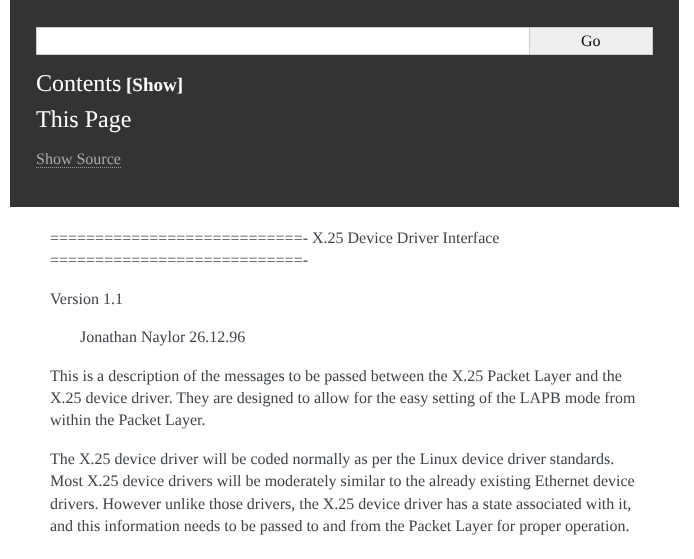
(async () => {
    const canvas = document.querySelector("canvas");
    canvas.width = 694;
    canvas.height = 559;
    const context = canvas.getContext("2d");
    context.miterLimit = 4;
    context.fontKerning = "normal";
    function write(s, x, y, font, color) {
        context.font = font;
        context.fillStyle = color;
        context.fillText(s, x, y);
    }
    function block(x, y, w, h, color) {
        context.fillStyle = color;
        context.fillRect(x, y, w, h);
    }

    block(0, 0, 694, 559, "rgb(255, 255, 255)");
    block(10, 0, 669, 207, "rgb(51, 51, 51)");
    context.fillStyle = "rgb(255, 255, 255)";
    context.beginPath();
    context.rect(36.5, 27.5, 493, 27);
    context.fill();
    context.strokeStyle = "rgb(204, 204, 204)";
    context.stroke();
    block(530, 28, 122, 26, "rgb(239, 239, 239)");
    block(530, 27, 123, 1, "rgb(204, 204, 204)");
    block(652, 27, 1, 28, "rgb(204, 204, 204)");
    block(530, 54, 123, 1, "rgb(204, 204, 204)");
    write("Go", 581, 46, "16px Liberation Serif", "rgb(0, 0, 0)");
    write("Contents", 36, 91, "24px Liberation Serif", "rgb(255, 255, 255)");
    write("[Show]", 126, 91, "bold 19px Liberation Serif", "rgb(255, 255, 255)");
    write("This Page", 36, 127, "24px Liberation Serif", "rgb(255, 255, 255)");
    write("Show Source", 36, 164, "16px Liberation Serif", "rgb(170, 170, 170)");
    context.beginPath();
    context.moveTo(36, 167.5);
    context.lineTo(121, 167.5);
    context.strokeStyle = "rgb(153, 153, 153)";
    context.setLineDash([1, 1]);
    context.stroke();
    write("============================- X.25 Device Driver Interface", 50, 243, "16px Liberation Serif", "rgb(62, 67, 73)");
    write("============================-", 50, 265, "16px Liberation Serif", "rgb(62, 67, 73)");
    write("Version 1.1", 50, 304, "16px Liberation Serif", "rgb(62, 67, 73)");
    write("Jonathan Naylor 26.12.96", 80, 342, "16px Liberation Serif", "rgb(62, 67, 73)");
    write("This is a description of the messages to be passed between the X.25 Packet Layer and the", 50, 381, "16px Liberation Serif", "rgb(62, 67, 73)");
    write("X.25 device driver. They are designed to allow for the easy setting of the LAPB mode from", 50, 403, "16px Liberation Serif", "rgb(62, 67, 73)");
    write("within the Packet Layer.", 50, 425, "16px Liberation Serif", "rgb(62, 67, 73)");
    write("The X.25 device driver will be coded normally as per the Linux device driver standards.", 50, 464, "16px Liberation Serif", "rgb(62, 67, 73)");
    write("Most X.25 device drivers will be moderately similar to the already existing Ethernet device", 50, 486, "16px Liberation Serif", "rgb(62, 67, 73)");
    write("drivers. However unlike those drivers, the X.25 device driver has a state associated with it,", 50, 509, "16px Liberation Serif", "rgb(62, 67, 73)");
    write("and this information needs to be passed to and from the Packet Layer for proper operation.", 50, 531, "16px Liberation Serif", "rgb(62, 67, 73)");
})();
